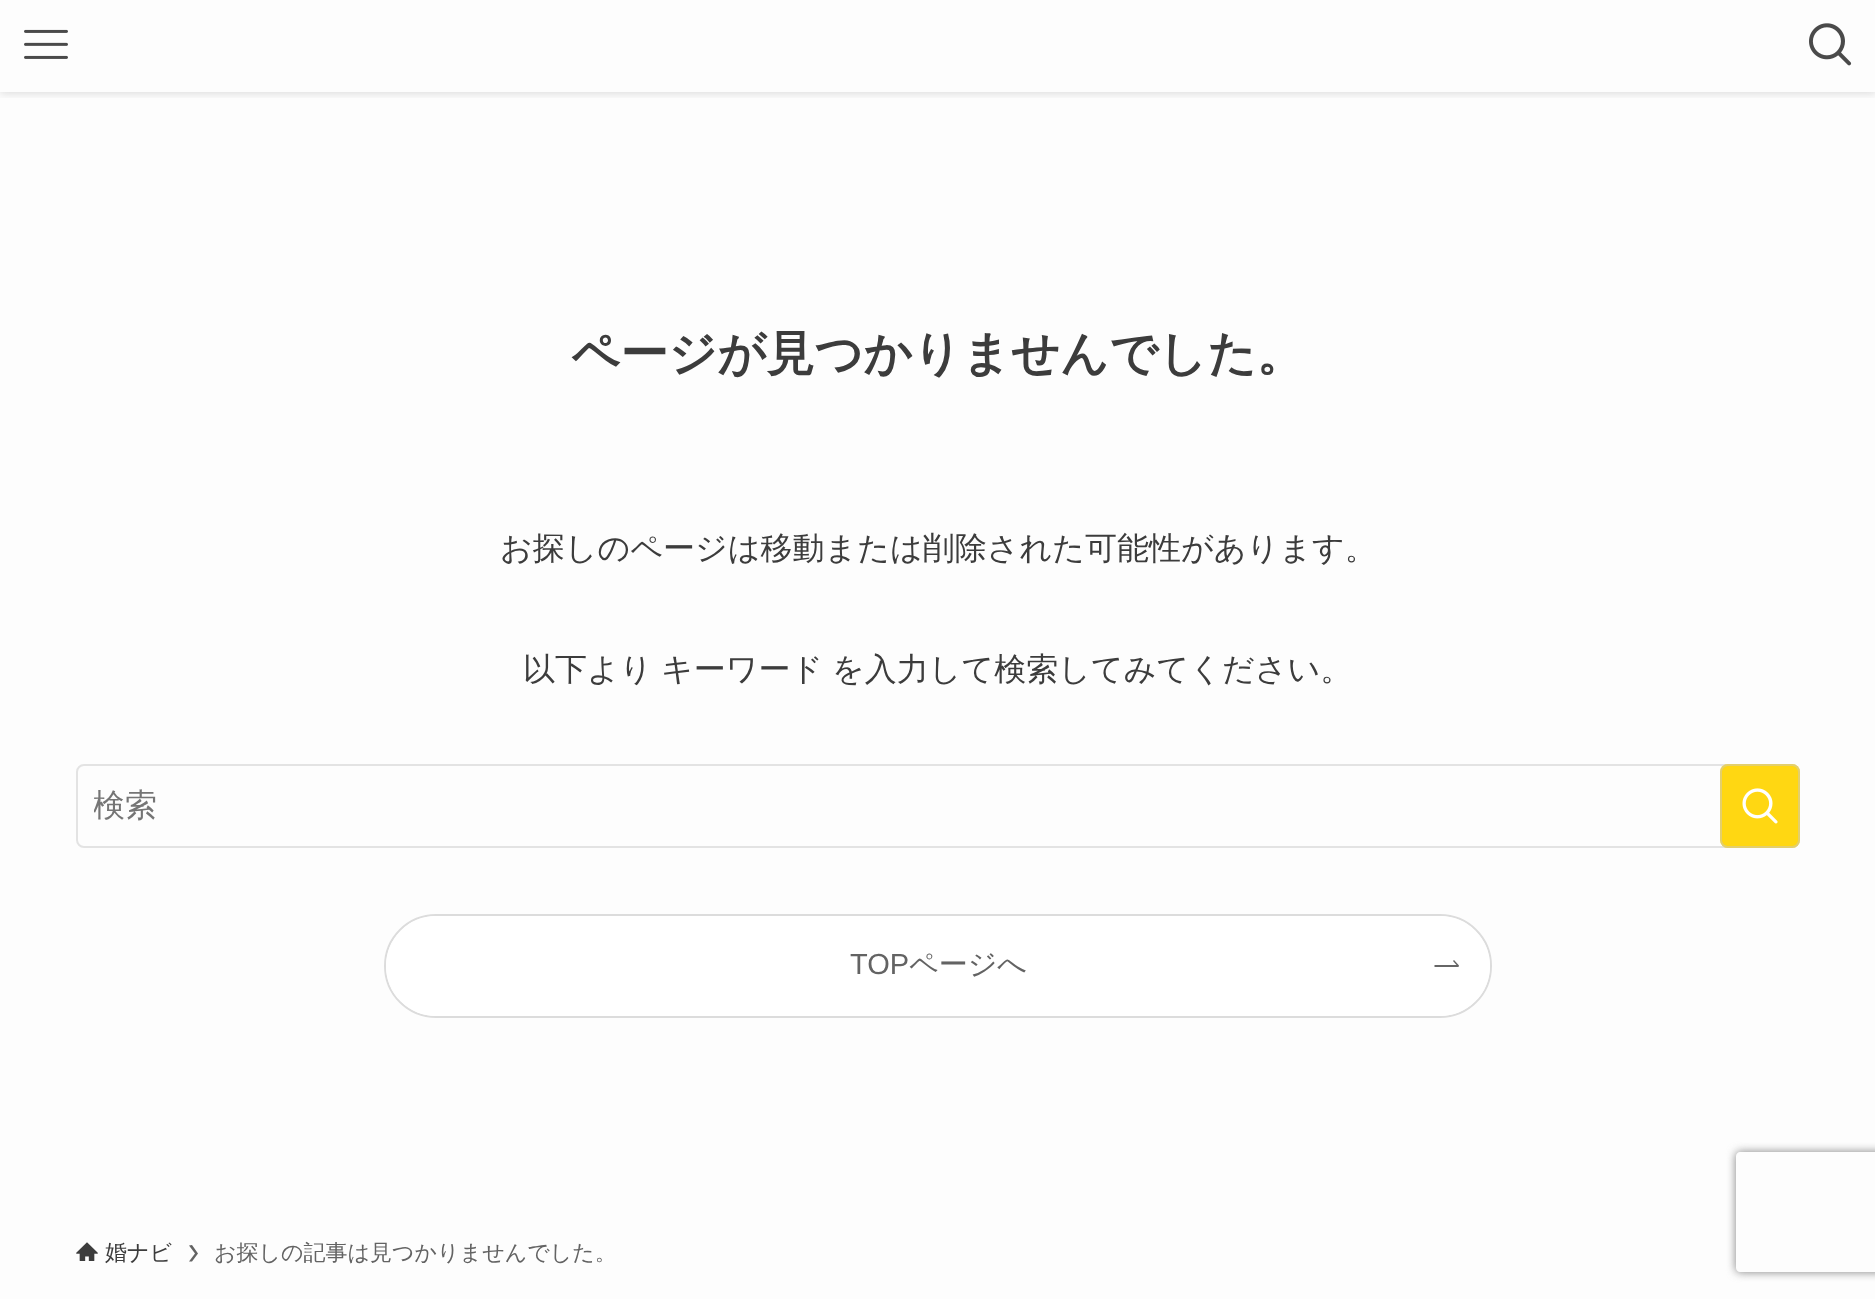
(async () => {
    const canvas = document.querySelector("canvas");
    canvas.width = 1875;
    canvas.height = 1299;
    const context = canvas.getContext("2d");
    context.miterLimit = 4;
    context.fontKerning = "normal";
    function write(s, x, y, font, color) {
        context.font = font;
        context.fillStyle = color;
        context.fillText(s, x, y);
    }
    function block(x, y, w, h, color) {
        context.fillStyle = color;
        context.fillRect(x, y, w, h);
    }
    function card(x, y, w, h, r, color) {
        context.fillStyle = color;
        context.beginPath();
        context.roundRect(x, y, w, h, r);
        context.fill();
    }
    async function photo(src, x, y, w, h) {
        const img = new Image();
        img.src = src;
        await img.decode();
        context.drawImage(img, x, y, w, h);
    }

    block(0, 0, 1875, 1299, "rgb(253, 253, 253)");
    context.save();
    context.beginPath();
    context.rect(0, 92, 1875, 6);
    context.clip();
    context.fillStyle = "rgba(0, 0, 0, 0.12)";
    context.filter = "blur(4px)";
    context.beginPath();
    context.rect(0, 2, 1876, 92);
    context.fill();
    context.filter = "none";
    context.restore();
    await photo("media/1.png", 24, 29, 44, 30);
    await photo("media/2.png", 1809, 23, 43, 43);
    write("ページが見つかりませんでした。", 571, 370, "bold 48px WenQuanYi Zen Hei", "rgb(60, 60, 60)");
    write("お探しのページは移動または削除された可能性があります。", 500, 559, "500 32px WenQuanYi Zen Hei", "rgb(60, 60, 60)");
    context.wordSpacing = "-1px";
    write("以下より キーワード を入力して検索してみてください。", 523, 680, "500 32px WenQuanYi Zen Hei", "rgb(60, 60, 60)");
    context.beginPath();
    context.roundRect(77, 765, 1722, 82, 7);
    context.strokeStyle = "rgb(227, 227, 227)";
    context.lineWidth = 2;
    context.stroke();
    context.save();
    context.beginPath();
    context.rect(94, 786, 1616, 42);
    context.clip();
    context.wordSpacing = "0px";
    write("検索", 93, 816, "500 32px WenQuanYi Zen Hei", "rgb(117, 117, 117)");
    context.restore();
    card(1720, 764, 80, 84, 8, "rgb(255, 215, 18)");
    context.beginPath();
    context.roundRect(1721, 765, 78, 82, 7);
    context.strokeStyle = "rgba(199, 199, 199, 0.5)";
    context.stroke();
    await photo("media/3.png", 1742, 788, 36, 36);
    context.beginPath();
    context.roundRect(385, 915, 1106, 102, 51);
    context.strokeStyle = "rgb(220, 220, 220)";
    context.stroke();
    card(386, 916, 1104, 100, 50, "rgb(255, 255, 255)");
    context.wordSpacing = "0px";
    write("TOP", 850, 974, "29px Liberation Sans", "rgb(99, 99, 99)");
    write("ページへ", 909, 974, "500 29px WenQuanYi Zen Hei", "rgb(99, 99, 99)");
    context.fillStyle = "rgb(102, 102, 102)";
    context.beginPath();
    context.moveTo(1458.5, 967);
    context.lineTo(1434.5, 967);
    context.lineTo(1434.5, 965);
    context.lineTo(1456.5, 965);
    context.lineTo(1453, 961);
    context.lineTo(1454, 960);
    context.lineTo(1459, 965.5);
    context.closePath();
    context.fill();
    await photo("media/4.png", 76, 1242, 22, 19);
    write("婚ナビ", 105, 1260, "500 22px WenQuanYi Zen Hei", "rgb(60, 60, 60)");
    context.fillStyle = "rgb(99, 99, 99)";
    context.beginPath();
    context.moveTo(192, 1245);
    context.lineTo(189, 1245.5);
    context.lineTo(195, 1253.5);
    context.lineTo(189, 1261.5);
    context.lineTo(192, 1261.5);
    context.lineTo(198, 1253.5);
    context.closePath();
    context.fill();
    write("お探しの記事は見つかりませんでした。", 214, 1260, "500 22px WenQuanYi Zen Hei", "rgb(99, 99, 99)");
    context.save();
    context.beginPath();
    context.moveTo(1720, 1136);
    context.lineTo(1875, 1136);
    context.lineTo(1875, 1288);
    context.lineTo(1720, 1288);
    context.closePath();
    context.moveTo(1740, 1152);
    context.lineTo(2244, 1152);
    context.bezierCurveTo(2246, 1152, 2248, 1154, 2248, 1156);
    context.lineTo(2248, 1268);
    context.bezierCurveTo(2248, 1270, 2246, 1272, 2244, 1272);
    context.lineTo(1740, 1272);
    context.bezierCurveTo(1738, 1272, 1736, 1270, 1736, 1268);
    context.lineTo(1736, 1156);
    context.bezierCurveTo(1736, 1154, 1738, 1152, 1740, 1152);
    context.closePath();
    context.clip("evenodd");
    context.fillStyle = "rgb(128, 128, 128)";
    context.filter = "blur(5px)";
    context.beginPath();
    context.roundRect(1736, 1152, 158, 120, 4);
    context.fill();
    context.filter = "none";
    context.restore();
})();
